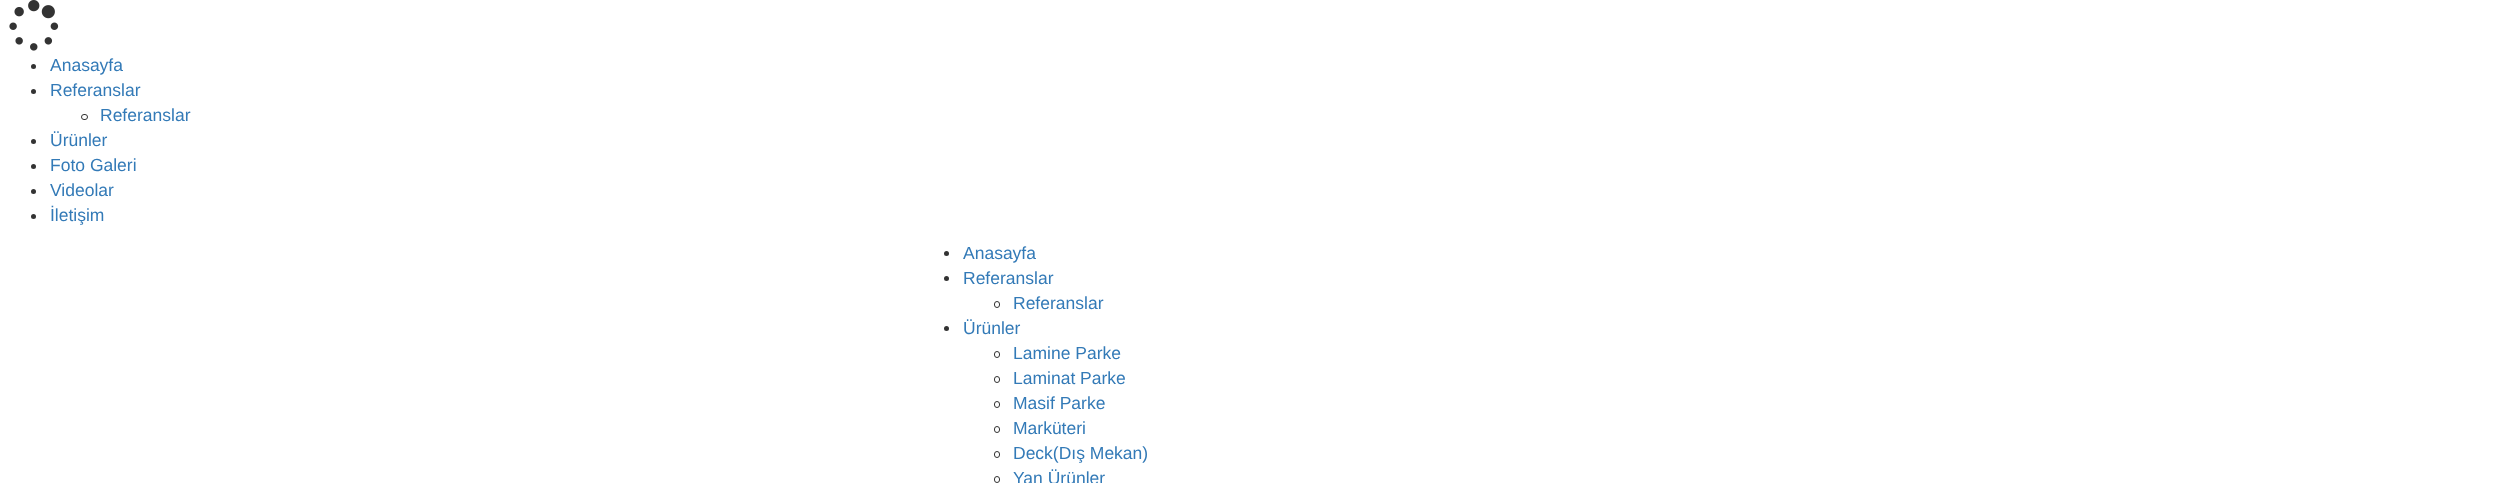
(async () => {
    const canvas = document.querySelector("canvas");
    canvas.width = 2518;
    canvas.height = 483;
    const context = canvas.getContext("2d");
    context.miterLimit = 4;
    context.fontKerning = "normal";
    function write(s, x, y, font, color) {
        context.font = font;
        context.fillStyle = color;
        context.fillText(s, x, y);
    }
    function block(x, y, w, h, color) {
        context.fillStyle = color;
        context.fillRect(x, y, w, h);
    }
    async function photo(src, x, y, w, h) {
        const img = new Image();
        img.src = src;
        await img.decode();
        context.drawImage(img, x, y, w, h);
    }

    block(0, 0, 2518, 483, "rgb(255, 255, 255)");
    await photo("media/1.png", 9, 0, 50, 51);
    context.fillStyle = "rgb(51, 51, 51)";
    context.beginPath();
    context.arc(33.5, 66.5, 2.5, 0, Math.PI * 2);
    context.fill();
    write("Anasayfa", 50, 71, "17.5px Liberation Sans", "rgb(51, 122, 183)");
    context.fillStyle = "rgb(51, 51, 51)";
    context.beginPath();
    context.arc(33.5, 91.5, 2.5, 0, Math.PI * 2);
    context.fill();
    write("Referanslar", 50, 96, "17.5px Liberation Sans", "rgb(51, 122, 183)");
    context.beginPath();
    context.roundRect(81.5, 114.5, 6, 5, 2.5);
    context.strokeStyle = "rgb(51, 51, 51)";
    context.stroke();
    write("Referanslar", 100, 121, "17.5px Liberation Sans", "rgb(51, 122, 183)");
    context.fillStyle = "rgb(51, 51, 51)";
    context.beginPath();
    context.arc(33.5, 141.5, 2.5, 0, Math.PI * 2);
    context.fill();
    write("Ürünler", 50, 146, "17.5px Liberation Sans", "rgb(51, 122, 183)");
    context.fillStyle = "rgb(51, 51, 51)";
    context.beginPath();
    context.arc(33.5, 166.5, 2.5, 0, Math.PI * 2);
    context.fill();
    write("Foto Galeri", 50, 171, "17.5px Liberation Sans", "rgb(51, 122, 183)");
    context.fillStyle = "rgb(51, 51, 51)";
    context.beginPath();
    context.arc(33.5, 191.5, 2.5, 0, Math.PI * 2);
    context.fill();
    write("Videolar", 50, 196, "17.5px Liberation Sans", "rgb(51, 122, 183)");
    context.fillStyle = "rgb(51, 51, 51)";
    context.beginPath();
    context.arc(33.5, 216.5, 2.5, 0, Math.PI * 2);
    context.fill();
    write("İletişim", 50, 221, "17.5px Liberation Sans", "rgb(51, 122, 183)");
    context.fillStyle = "rgb(51, 51, 51)";
    context.beginPath();
    context.arc(946.5, 253.5, 2.5, 0, Math.PI * 2);
    context.fill();
    write("Anasayfa", 963, 259, "17.5px Liberation Sans", "rgb(51, 122, 183)");
    context.fillStyle = "rgb(51, 51, 51)";
    context.beginPath();
    context.arc(946.5, 278.5, 2.5, 0, Math.PI * 2);
    context.fill();
    write("Referanslar", 963, 284, "17.5px Liberation Sans", "rgb(51, 122, 183)");
    context.beginPath();
    context.roundRect(994.5, 301.5, 5, 6, 2.5);
    context.stroke();
    write("Referanslar", 1013, 309, "17.5px Liberation Sans", "rgb(51, 122, 183)");
    context.fillStyle = "rgb(51, 51, 51)";
    context.beginPath();
    context.arc(946.5, 328.5, 2.5, 0, Math.PI * 2);
    context.fill();
    write("Ürünler", 963, 334, "17.5px Liberation Sans", "rgb(51, 122, 183)");
    context.beginPath();
    context.roundRect(994.5, 351.5, 5, 6, 2.5);
    context.stroke();
    write("Lamine Parke", 1013, 359, "17.5px Liberation Sans", "rgb(51, 122, 183)");
    context.beginPath();
    context.roundRect(994.5, 376.5, 5, 6, 2.5);
    context.stroke();
    write("Laminat Parke", 1013, 384, "17.5px Liberation Sans", "rgb(51, 122, 183)");
    context.beginPath();
    context.roundRect(994.5, 401.5, 5, 6, 2.5);
    context.stroke();
    write("Masif Parke", 1013, 409, "17.5px Liberation Sans", "rgb(51, 122, 183)");
    context.beginPath();
    context.roundRect(994.5, 426.5, 5, 6, 2.5);
    context.stroke();
    write("Marküteri", 1013, 434, "17.5px Liberation Sans", "rgb(51, 122, 183)");
    context.beginPath();
    context.roundRect(994.5, 451.5, 5, 6, 2.5);
    context.stroke();
    write("Deck(Dış Mekan)", 1013, 459, "17.5px Liberation Sans", "rgb(51, 122, 183)");
    context.beginPath();
    context.roundRect(994.5, 476.5, 5, 6, 2.5);
    context.stroke();
    write("Yan Ürünler", 1013, 484, "17.5px Liberation Sans", "rgb(51, 122, 183)");
})();
